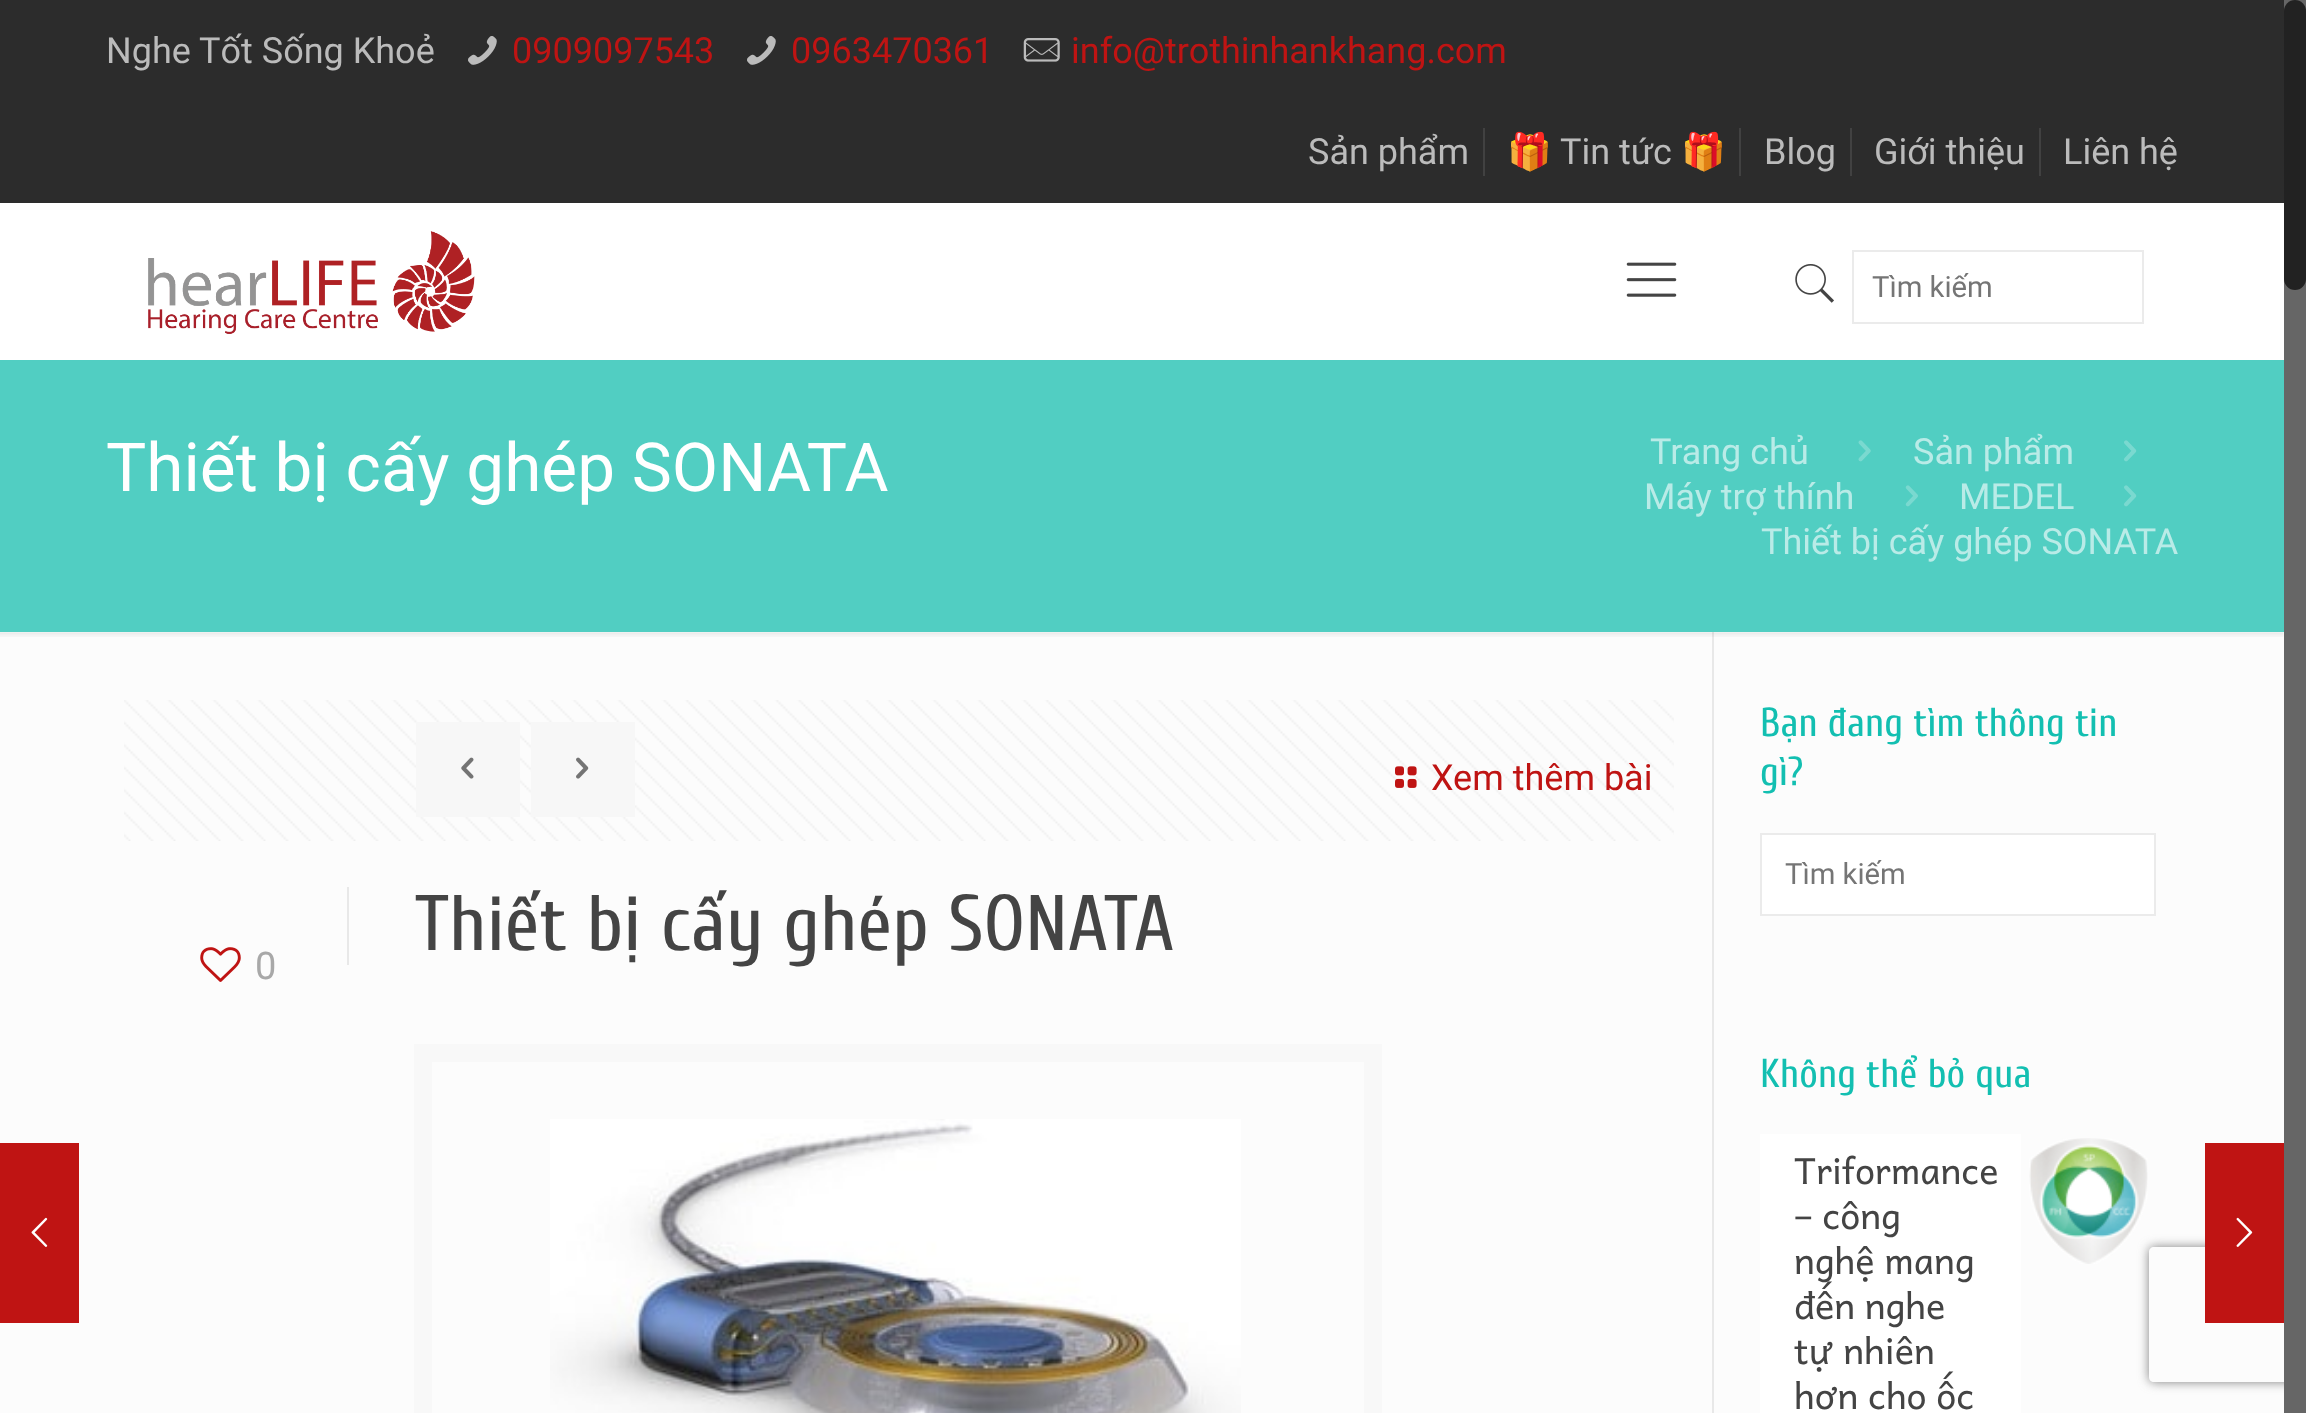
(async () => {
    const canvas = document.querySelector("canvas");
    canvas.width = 2306;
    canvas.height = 1413;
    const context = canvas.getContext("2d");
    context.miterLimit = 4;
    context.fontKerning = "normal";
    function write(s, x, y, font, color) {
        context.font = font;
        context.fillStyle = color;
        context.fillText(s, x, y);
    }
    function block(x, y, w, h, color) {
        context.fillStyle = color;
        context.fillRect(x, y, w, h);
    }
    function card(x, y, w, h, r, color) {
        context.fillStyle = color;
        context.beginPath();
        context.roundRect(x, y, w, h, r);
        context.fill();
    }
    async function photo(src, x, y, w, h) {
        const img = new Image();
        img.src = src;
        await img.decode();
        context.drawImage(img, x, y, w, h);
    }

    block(0, 0, 2306, 1413, "rgb(252, 252, 252)");
    block(0, 1143, 79, 180, "rgb(191, 20, 19)");
    await photo("media/1.png", 31, 1217, 17, 30);
    block(0, 0, 2284, 203, "rgb(44, 44, 44)");
    write("Nghe Tốt Sống Khoẻ", 106, 63, "36px Roboto", "rgb(187, 187, 187)");
    await photo("media/2.png", 468, 36, 29, 29);
    write("0909097543", 512, 63, "36px Roboto", "rgb(191, 20, 19)");
    await photo("media/2.png", 747, 36, 29, 29);
    write("0963470361", 791, 63, "36px Roboto", "rgb(191, 20, 19)");
    await photo("media/3.png", 1023, 38, 37, 24);
    write("info@trothinhankhang.com", 1071, 63, "36px Roboto", "rgb(191, 20, 19)");
    block(1483, 128, 2, 48, "rgb(65, 65, 65)");
    write("Sản phẩm", 1308, 164, "36px Roboto", "rgb(187, 187, 187)");
    block(1739, 128, 2, 48, "rgb(65, 65, 65)");
    write("🎁", 1507, 164, "36px Noto Color Emoji", "rgb(187, 187, 187)");
    write("Tin tức", 1560, 164, "36px Roboto", "rgb(187, 187, 187)");
    write("🎁", 1681, 164, "36px Noto Color Emoji", "rgb(187, 187, 187)");
    block(1850, 128, 2, 48, "rgb(65, 65, 65)");
    write("Blog", 1764, 164, "36px Roboto", "rgb(187, 187, 187)");
    block(2039, 128, 2, 48, "rgb(65, 65, 65)");
    write("Giới thiệu", 1874, 164, "36px Roboto", "rgb(187, 187, 187)");
    write("Liên hệ", 2063, 164, "36px Roboto", "rgb(187, 187, 187)");
    block(0, 203, 2284, 157, "rgb(255, 255, 255)");
    await photo("media/4.png", 148, 231, 327, 103);
    await photo("media/5.png", 1626, 262, 51, 35);
    await photo("media/6.png", 1795, 264, 39, 39);
    context.strokeStyle = "rgb(235, 235, 235)";
    context.lineWidth = 2;
    context.strokeRect(1853, 251, 290, 72);
    write("Tìm kiếm", 1872, 297, "29.25px Roboto", "rgb(117, 117, 117)");
    block(0, 360, 2284, 272, "rgb(81, 206, 194)");
    write("Thiết bị cấy ghép SONATA", 106, 491, "67.5px Roboto", "rgb(255, 255, 255)");
    write("Trang chủ", 1650, 464, "36px Roboto", "rgb(185, 235, 231)");
    await photo("media/7.png", 1858, 440, 13, 22);
    write("Sản phẩm", 1913, 464, "36px Roboto", "rgb(185, 235, 231)");
    await photo("media/8.png", 2124, 440, 13, 22);
    write("Máy trợ thính", 1644, 509, "36px Roboto", "rgb(185, 235, 231)");
    await photo("media/9.png", 1905, 485, 13, 22);
    write("MEDEL", 1959, 509, "36px Roboto", "rgb(185, 235, 231)");
    await photo("media/8.png", 2124, 485, 13, 22);
    write("Thiết bị cấy ghép SONATA", 1761, 554, "36px Roboto", "rgb(185, 235, 231)");
    block(1712, 632, 2, 781, "rgb(232, 232, 232)");
    await photo("media/10.png", 0, 632, 2284, 5);
    await photo("media/11.png", 124, 700, 1550, 141);
    block(416, 722, 104, 95, "rgb(247, 247, 247)");
    await photo("media/12.png", 461, 757, 13, 22);
    block(531, 722, 104, 95, "rgb(247, 247, 247)");
    await photo("media/13.png", 576, 757, 13, 22);
    await photo("media/14.png", 1395, 766, 22, 22);
    write("Xem thêm bài", 1431, 790, "36px Roboto", "rgb(191, 20, 19)");
    await photo("media/15.png", 200, 947, 41, 35);
    write("0", 255, 979, "38px Roboto", "rgb(168, 168, 168)");
    block(347, 887, 2, 78, "rgb(232, 232, 232)");
    write("Thiết bị cấy ghép SONATA", 415, 950, "78.75px Cuprum", "rgb(68, 68, 68)");
    context.strokeStyle = "rgb(248, 248, 248)";
    context.lineWidth = 18;
    context.strokeRect(423, 1053, 950, 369);
    await photo("media/16.png", 550, 1119, 691, 294);
    write("Bạn đang tìm thông tin", 1760, 736, "40.5px Cuprum", "rgb(19, 191, 177)");
    write("gì?", 1760, 785, "40.5px Cuprum", "rgb(19, 191, 177)");
    context.fillStyle = "rgb(255, 255, 255)";
    context.beginPath();
    context.rect(1761, 834, 394, 81);
    context.fill();
    context.strokeStyle = "rgb(235, 235, 235)";
    context.lineWidth = 2;
    context.stroke();
    write("Tìm kiếm", 1785, 884, "29.25px Roboto", "rgb(117, 117, 117)");
    write("Không thể bỏ qua", 1760, 1087, "40.5px Cuprum", "rgb(19, 191, 177)");
    block(1760, 1134, 261, 279, "rgb(255, 255, 255)");
    write("Triformance", 1794, 1184, "36px Andika", "rgb(68, 68, 68)");
    write("– công", 1794, 1229, "36px Andika", "rgb(68, 68, 68)");
    write("nghệ mang", 1794, 1274, "36px Andika", "rgb(68, 68, 68)");
    write("đến nghe", 1794, 1319, "36px Andika", "rgb(68, 68, 68)");
    write("tự nhiên", 1794, 1364, "36px Andika", "rgb(68, 68, 68)");
    write("hơn cho ốc", 1794, 1409, "36px Andika", "rgb(68, 68, 68)");
    await photo("media/17.png", 2029, 1138, 119, 126);
    context.save();
    context.beginPath();
    context.moveTo(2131, 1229);
    context.lineTo(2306, 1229);
    context.lineTo(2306, 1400);
    context.lineTo(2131, 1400);
    context.closePath();
    context.moveTo(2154, 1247);
    context.lineTo(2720, 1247);
    context.bezierCurveTo(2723, 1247, 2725, 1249, 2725, 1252);
    context.lineTo(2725, 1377);
    context.bezierCurveTo(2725, 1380, 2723, 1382, 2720, 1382);
    context.lineTo(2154, 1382);
    context.bezierCurveTo(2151, 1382, 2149, 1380, 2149, 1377);
    context.lineTo(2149, 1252);
    context.bezierCurveTo(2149, 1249, 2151, 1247, 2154, 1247);
    context.closePath();
    context.clip("evenodd");
    context.fillStyle = "rgb(128, 128, 128)";
    context.filter = "blur(5.5px)";
    context.beginPath();
    context.roundRect(2149, 1247, 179, 135, 5);
    context.fill();
    context.filter = "none";
    context.restore();
    block(2205, 1143, 79, 180, "rgb(191, 20, 19)");
    await photo("media/18.png", 2236, 1217, 17, 30);
    block(2284, 0, 22, 1413, "rgb(102, 102, 102)");
    card(2284, 0, 22, 290, 11, "rgb(34, 34, 34)");
})();
